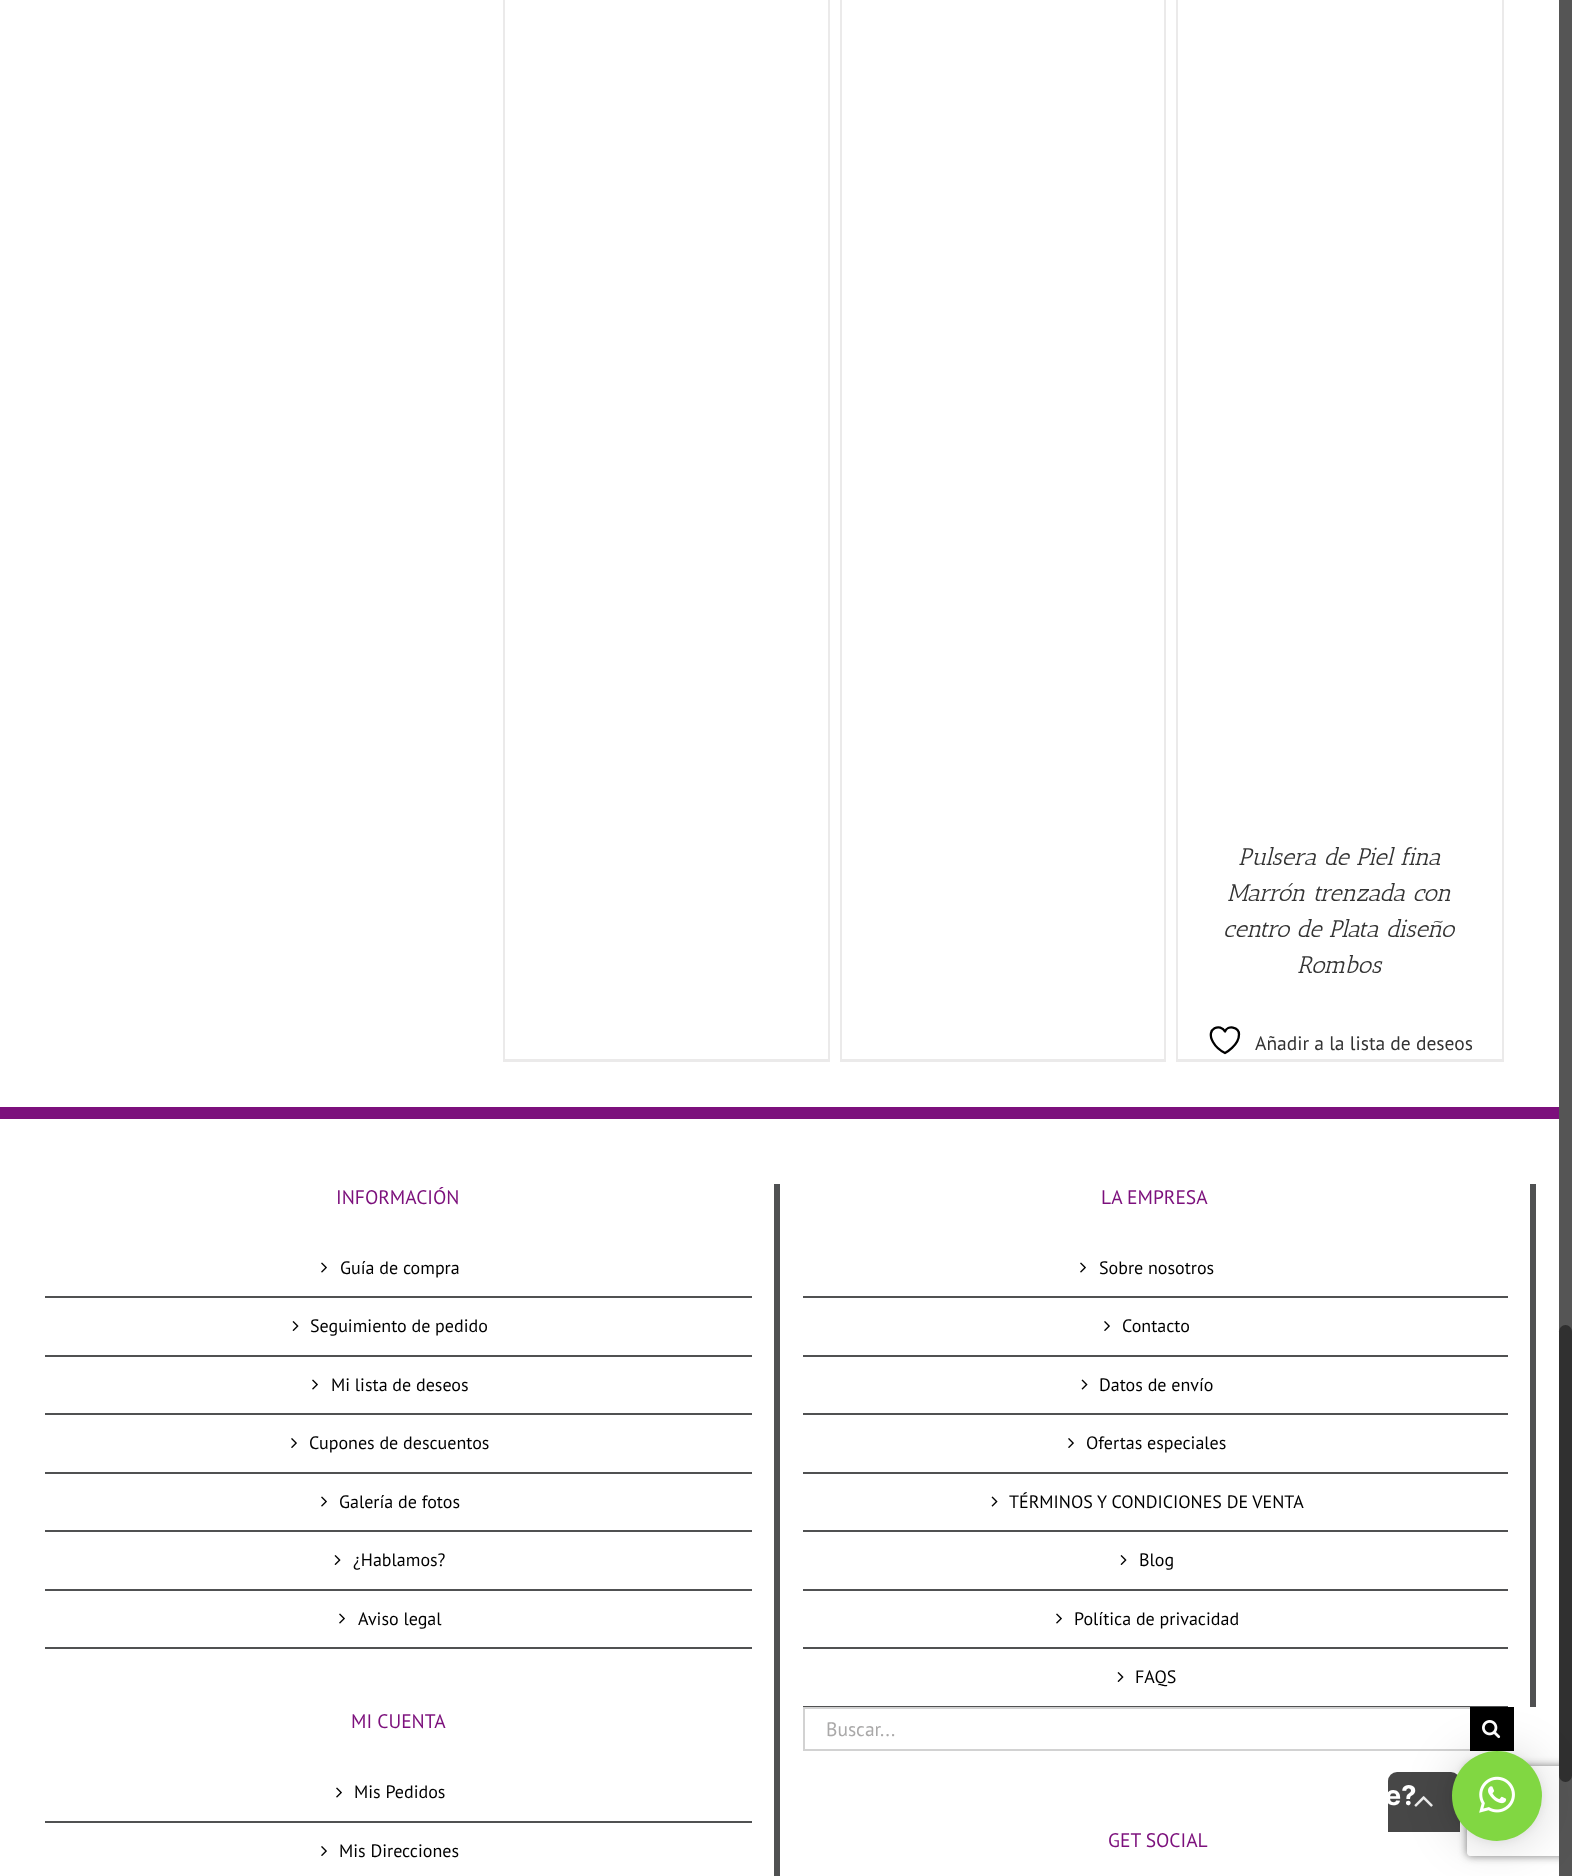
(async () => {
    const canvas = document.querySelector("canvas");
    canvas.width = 1572;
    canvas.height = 1876;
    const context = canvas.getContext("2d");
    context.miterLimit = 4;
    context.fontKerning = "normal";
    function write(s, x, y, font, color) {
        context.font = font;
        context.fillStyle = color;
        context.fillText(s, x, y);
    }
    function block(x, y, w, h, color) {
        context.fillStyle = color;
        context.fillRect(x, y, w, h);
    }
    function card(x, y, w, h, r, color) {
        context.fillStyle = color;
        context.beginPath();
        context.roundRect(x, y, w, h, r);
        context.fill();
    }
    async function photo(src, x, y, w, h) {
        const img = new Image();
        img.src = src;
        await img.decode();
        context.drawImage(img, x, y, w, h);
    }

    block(0, 0, 1572, 1876, "rgb(255, 255, 255)");
    block(828, 0, 2, 1062, "rgb(235, 234, 234)");
    block(503, 1059, 327, 3, "rgb(235, 234, 234)");
    block(503, 0, 2, 1062, "rgb(235, 234, 234)");
    block(1164, 0, 2, 1062, "rgb(235, 234, 234)");
    block(840, 1059, 326, 3, "rgb(235, 234, 234)");
    block(840, 0, 2, 1062, "rgb(235, 234, 234)");
    block(1502, 0, 2, 1062, "rgb(235, 234, 234)");
    block(1176, 1059, 327, 3, "rgb(235, 234, 234)");
    block(1176, 0, 2, 1062, "rgb(235, 234, 234)");
    write("Pulsera de Piel fina", 1238, 865, "italic 24px Antic Slab", "rgb(51, 51, 51)");
    write("Marrón trenzada con", 1227, 901, "italic 24px Antic Slab", "rgb(51, 51, 51)");
    write("centro de Plata diseño", 1223, 937, "italic 24px Antic Slab", "rgb(51, 51, 51)");
    write("Rombos", 1297, 973, "italic 24px Antic Slab", "rgb(51, 51, 51)");
    context.beginPath();
    context.moveTo(1239, 1034.5);
    context.bezierCurveTo(1239, 1026.5, 1227.5, 1025, 1225, 1031.5);
    context.bezierCurveTo(1221, 1023, 1205, 1028, 1213, 1042);
    context.bezierCurveTo(1215.5, 1046.5, 1220, 1050.5, 1225, 1053);
    context.bezierCurveTo(1225, 1053, 1239, 1045.5, 1239, 1034.5);
    context.closePath();
    context.strokeStyle = "rgb(0, 0, 0)";
    context.lineWidth = 2.3;
    context.lineCap = "round";
    context.lineJoin = "round";
    context.stroke();
    write("Añadir a la lista de deseos", 1255, 1050, "19.5px PT Sans", "rgb(51, 51, 51)");
    block(0, 1107, 1559, 12, "rgb(124, 16, 124)");
    block(774, 1184, 6, 692, "rgb(80, 81, 82)");
    write("INFORMACIÓN", 336, 1204, "19.5px PT Sans", "rgb(124, 16, 124)");
    block(45, 1296, 707, 2, "rgb(80, 81, 82)");
    await photo("media/1.png", 321, 1262, 6, 11);
    write("Guía de compra", 340, 1274, "18px PT Sans", "rgb(0, 0, 0)");
    block(45, 1355, 707, 2, "rgb(80, 81, 82)");
    await photo("media/2.png", 292, 1321, 7, 10);
    write("Seguimiento de pedido", 310, 1332, "18px PT Sans", "rgb(0, 0, 0)");
    block(45, 1413, 707, 2, "rgb(80, 81, 82)");
    await photo("media/1.png", 312, 1379, 6, 11);
    write("Mi lista de deseos", 331, 1391, "18px PT Sans", "rgb(0, 0, 0)");
    block(45, 1472, 707, 2, "rgb(80, 81, 82)");
    await photo("media/3.png", 291, 1438, 6, 10);
    write("Cupones de descuentos", 309, 1449, "18px PT Sans", "rgb(0, 0, 0)");
    block(45, 1530, 707, 2, "rgb(80, 81, 82)");
    await photo("media/1.png", 321, 1496, 6, 11);
    write("Galería de fotos", 339, 1508, "18px PT Sans", "rgb(0, 0, 0)");
    block(45, 1589, 707, 2, "rgb(80, 81, 82)");
    await photo("media/2.png", 334, 1555, 7, 10);
    write("¿Hablamos?", 353, 1566, "18px PT Sans", "rgb(0, 0, 0)");
    block(45, 1647, 707, 2, "rgb(80, 81, 82)");
    await photo("media/1.png", 339, 1613, 6, 11);
    write("Aviso legal", 358, 1625, "18px PT Sans", "rgb(0, 0, 0)");
    block(1530, 1184, 6, 523, "rgb(80, 81, 82)");
    write("LA EMPRESA", 1101, 1204, "19.5px PT Sans", "rgb(124, 16, 124)");
    block(803, 1296, 705, 2, "rgb(80, 81, 82)");
    await photo("media/1.png", 1080, 1262, 6, 11);
    write("Sobre nosotros", 1099, 1274, "18px PT Sans", "rgb(0, 0, 0)");
    block(803, 1355, 705, 2, "rgb(80, 81, 82)");
    await photo("media/3.png", 1104, 1321, 6, 10);
    write("Contacto", 1122, 1332, "18px PT Sans", "rgb(0, 0, 0)");
    block(803, 1413, 705, 2, "rgb(80, 81, 82)");
    await photo("media/4.png", 1081, 1379, 7, 11);
    write("Datos de envío", 1099, 1391, "18px PT Sans", "rgb(0, 0, 0)");
    block(803, 1472, 705, 2, "rgb(80, 81, 82)");
    await photo("media/3.png", 1068, 1438, 6, 10);
    write("Ofertas especiales", 1086, 1449, "18px PT Sans", "rgb(0, 0, 0)");
    block(803, 1530, 705, 2, "rgb(80, 81, 82)");
    await photo("media/4.png", 991, 1496, 7, 11);
    write("TÉRMINOS Y CONDICIONES DE VENTA", 1009, 1508, "18px PT Sans", "rgb(0, 0, 0)");
    block(803, 1589, 705, 2, "rgb(80, 81, 82)");
    await photo("media/2.png", 1120, 1555, 7, 10);
    write("Blog", 1139, 1566, "18px PT Sans", "rgb(0, 0, 0)");
    block(803, 1647, 705, 2, "rgb(80, 81, 82)");
    await photo("media/1.png", 1056, 1613, 6, 11);
    write("Política de privacidad", 1074, 1625, "18px PT Sans", "rgb(0, 0, 0)");
    block(803, 1706, 705, 1, "rgb(80, 81, 82)");
    await photo("media/2.png", 1117, 1672, 7, 10);
    write("FAQS", 1135, 1683, "18px PT Sans", "rgb(0, 0, 0)");
    write("MI CUENTA", 351, 1728, "19.5px PT Sans", "rgb(124, 16, 124)");
    block(45, 1821, 707, 2, "rgb(80, 81, 82)");
    await photo("media/1.png", 336, 1787, 6, 11);
    write("Mis Pedidos", 354, 1798, "18px PT Sans", "rgb(0, 0, 0)");
    await photo("media/3.png", 321, 1846, 6, 10);
    write("Mis Direcciones", 339, 1857, "18px PT Sans", "rgb(0, 0, 0)");
    block(803, 1707, 667, 2, "rgb(210, 210, 210)");
    block(803, 1749, 667, 2, "rgb(210, 210, 210)");
    block(803, 1707, 2, 44, "rgb(210, 210, 210)");
    write("Buscar...", 826, 1736, "19.5px PT Sans", "rgb(170, 169, 169)");
    block(1470, 1707, 44, 44, "rgb(0, 0, 0)");
    await photo("media/5.png", 1482, 1720, 19, 19);
    write("GET SOCIAL", 1108, 1847, "19.5px PT Sans", "rgb(124, 16, 124)");
    context.save();
    context.beginPath();
    context.moveTo(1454, 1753);
    context.lineTo(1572, 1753);
    context.lineTo(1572, 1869);
    context.lineTo(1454, 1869);
    context.closePath();
    context.moveTo(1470, 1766);
    context.lineTo(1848, 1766);
    context.bezierCurveTo(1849.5, 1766, 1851, 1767.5, 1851, 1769);
    context.lineTo(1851, 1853);
    context.bezierCurveTo(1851, 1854.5, 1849.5, 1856, 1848, 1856);
    context.lineTo(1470, 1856);
    context.bezierCurveTo(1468.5, 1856, 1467, 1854.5, 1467, 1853);
    context.lineTo(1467, 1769);
    context.bezierCurveTo(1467, 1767.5, 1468.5, 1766, 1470, 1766);
    context.closePath();
    context.clip("evenodd");
    context.fillStyle = "rgb(128, 128, 128)";
    context.filter = "blur(4px)";
    context.beginPath();
    context.roundRect(1467, 1766, 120, 90, 3);
    context.fill();
    context.filter = "none";
    context.restore();
    block(1559, 0, 13, 1876, "rgb(85, 85, 85)");
    card(1559, 1325, 13, 457, 6.5, "rgb(48, 48, 48)");
    context.fillStyle = "rgba(51, 51, 51, 0.9)";
    context.beginPath();
    context.roundRect(1388, 1772, 72, 60, [9, 9, 0, 0]);
    context.fill();
    await photo("media/6.png", 1414, 1796, 19, 11);
    context.fillStyle = "rgba(0, 0, 0, 0.16)";
    context.filter = "blur(24px)";
    context.beginPath();
    context.roundRect(1452, 1754, 90, 90, 45);
    context.fill();
    context.filter = "none";
    context.fillStyle = "rgba(0, 0, 0, 0.06)";
    context.filter = "blur(4.5px)";
    context.beginPath();
    context.roundRect(1452, 1752, 90, 90, 45);
    context.fill();
    context.filter = "none";
    context.fillStyle = "rgb(129, 215, 66)";
    context.beginPath();
    context.arc(1497, 1796, 45, 0, Math.PI * 2);
    context.fill();
    write("e?", 1385, 1805, "bold 27px Inter", "rgb(255, 255, 255)");
    await photo("media/7.png", 1479, 1776, 36, 37);
})();
